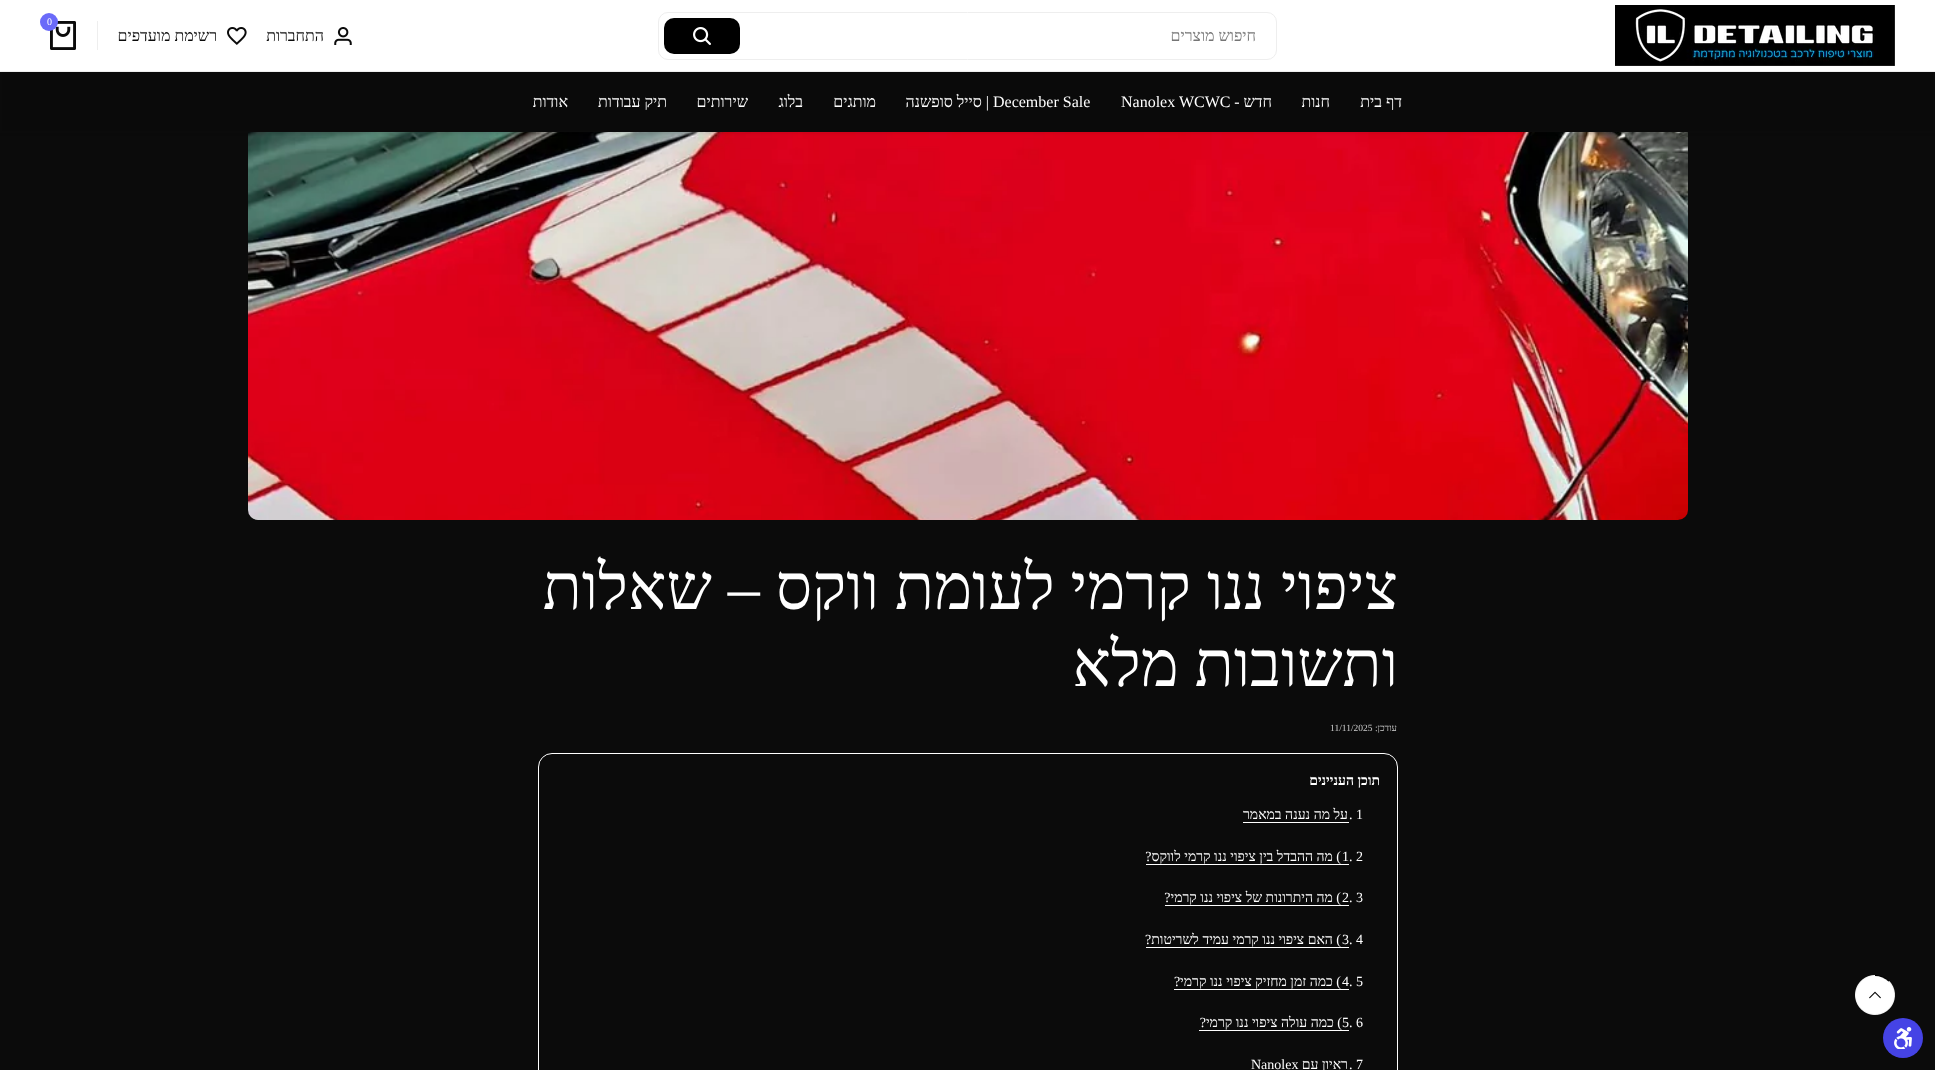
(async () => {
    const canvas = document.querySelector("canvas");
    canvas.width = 1935;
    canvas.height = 1070;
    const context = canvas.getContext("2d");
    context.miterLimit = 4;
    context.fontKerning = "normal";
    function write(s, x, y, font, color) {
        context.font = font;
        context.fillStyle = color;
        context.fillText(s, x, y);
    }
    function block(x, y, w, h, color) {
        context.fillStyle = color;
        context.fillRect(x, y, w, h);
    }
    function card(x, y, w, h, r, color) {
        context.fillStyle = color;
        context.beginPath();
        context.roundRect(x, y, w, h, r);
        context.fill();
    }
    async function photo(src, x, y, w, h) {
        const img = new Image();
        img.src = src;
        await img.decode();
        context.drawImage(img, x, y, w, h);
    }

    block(0, 0, 1935, 1070, "rgb(11, 11, 11)");
    await photo("media/8.png", 248, 132, 1440, 388);
    context.fillStyle = "rgba(11, 11, 11, 0.1)";
    context.filter = "blur(1.5px)";
    context.beginPath();
    context.rect(0, 1, 1935, 132);
    context.fill();
    context.filter = "none";
    block(0, 0, 1935, 71, "rgb(255, 255, 255)");
    await photo("media/1.png", 1615, 5, 280, 61);
    context.beginPath();
    context.roundRect(658.5, 12.5, 618, 47, 9.5);
    context.strokeStyle = "rgb(238, 238, 238)";
    context.stroke();
    context.direction = "rtl";
    write("חיפוש מוצרים", 1256, 41, "16px Liberation Serif", "rgb(117, 117, 117)");
    card(664, 18, 76, 36, 10, "rgb(0, 0, 0)");
    await photo("media/2.png", 693, 27, 18, 18);
    block(97, 21, 1, 29, "rgb(238, 238, 238)");
    await photo("media/3.png", 50, 21, 26, 29);
    context.fillStyle = "rgb(106, 106, 249)";
    context.beginPath();
    context.arc(49, 22, 9, 0, Math.PI * 2);
    context.fill();
    context.direction = "ltr";
    write("0", 47, 25, "10px Liberation Serif", "rgb(255, 255, 255)");
    await photo("media/4.png", 334, 27, 18, 18);
    context.direction = "rtl";
    write("התחברות", 324, 41, "16px Liberation Serif", "rgb(11, 11, 11)");
    await photo("media/5.png", 227, 27, 20, 18);
    write("רשימת מועדפים", 217, 41, "16px Liberation Serif", "rgb(11, 11, 11)");
    block(0, 71, 1935, 1, "rgb(238, 238, 238)");
    write("דף בית", 1402, 107, "16px Liberation Serif", "rgb(255, 255, 255)");
    write("חנות", 1330, 107, "16px Liberation Serif", "rgb(255, 255, 255)");
    write("חדש -", 1272, 107, "16px Liberation Serif", "rgb(255, 255, 255)");
    context.direction = "ltr";
    write("Nanolex WCWC", 1121, 107, "16px Liberation Serif", "rgb(255, 255, 255)");
    write("December Sale", 993, 107, "16px Liberation Serif", "rgb(255, 255, 255)");
    context.direction = "rtl";
    write("| סייל סופשנה", 989, 107, "16px Liberation Serif", "rgb(255, 255, 255)");
    write("מותגים", 876, 107, "16px Liberation Serif", "rgb(255, 255, 255)");
    write("בלוג", 803, 107, "16px Liberation Serif", "rgb(255, 255, 255)");
    write("שירותים", 748, 107, "16px Liberation Serif", "rgb(255, 255, 255)");
    write("תיק עבודות", 667, 107, "16px Liberation Serif", "rgb(255, 255, 255)");
    write("אודות", 568, 107, "16px Liberation Serif", "rgb(255, 255, 255)");
    await photo("media/6.png", 1855, 975, 40, 40);
    context.beginPath();
    context.arc(1875, 995, 19, 0, Math.PI * 2);
    context.fill();
    await photo("media/7.png", 1869, 991, 12, 8);
    write("ציפוי ננו קרמי לעומת ווקס – שאלות", 1398, 609, "64px Liberation Serif", "rgb(255, 255, 255)");
    write("ותשובות מלא", 1398, 686, "64px Liberation Serif", "rgb(255, 255, 255)");
    write("עודכן:", 1397, 731, "9.5px Liberation Serif", "rgb(206, 206, 206)");
    context.direction = "ltr";
    write("11/11/2025", 1330, 731, "9.5px Liberation Serif", "rgb(206, 206, 206)");
    context.beginPath();
    context.roundRect(538.5, 753.5, 859, 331, 13.5);
    context.strokeStyle = "rgb(255, 255, 255)";
    context.stroke();
    context.direction = "rtl";
    write("תוכן העניינים", 1380, 785, "bold 14px Liberation Serif", "rgb(255, 255, 255)");
    context.direction = "ltr";
    write(". 1", 1349, 819, "14px Liberation Serif", "rgb(255, 255, 255)");
    context.direction = "rtl";
    write("על מה נענה במאמר", 1348, 819, "14px Liberation Serif", "rgb(255, 255, 255)");
    block(1243, 822, 106, 1, "rgb(255, 255, 255)");
    context.direction = "ltr";
    write(". 2", 1349, 861, "14px Liberation Serif", "rgb(255, 255, 255)");
    write("1", 1342, 861, "14px Liberation Serif", "rgb(255, 255, 255)");
    context.direction = "rtl";
    write(") מה ההבדל בין ציפוי ננו קרמי לווקס?", 1341, 861, "14px Liberation Serif", "rgb(255, 255, 255)");
    block(1146, 864, 203, 1, "rgb(255, 255, 255)");
    context.direction = "ltr";
    write(". 3", 1349, 902, "14px Liberation Serif", "rgb(255, 255, 255)");
    write("2", 1342, 902, "14px Liberation Serif", "rgb(255, 255, 255)");
    context.direction = "rtl";
    write(") מה היתרונות של ציפוי ננו קרמי?", 1341, 902, "14px Liberation Serif", "rgb(255, 255, 255)");
    block(1165, 905, 184, 1, "rgb(255, 255, 255)");
    context.direction = "ltr";
    write(". 4", 1349, 944, "14px Liberation Serif", "rgb(255, 255, 255)");
    write("3", 1342, 944, "14px Liberation Serif", "rgb(255, 255, 255)");
    context.direction = "rtl";
    write(") האם ציפוי ננו קרמי עמיד לשריטות?", 1341, 944, "14px Liberation Serif", "rgb(255, 255, 255)");
    block(1146, 947, 203, 1, "rgb(255, 255, 255)");
    context.direction = "ltr";
    write(". 5", 1349, 986, "14px Liberation Serif", "rgb(255, 255, 255)");
    context.direction = "rtl";
    write(") כמה זמן מחזיק ציפוי ננו קרמי?", 1341, 986, "14px Liberation Serif", "rgb(255, 255, 255)");
    context.direction = "ltr";
    write("4", 1342, 986, "14px Liberation Serif", "rgb(255, 255, 255)");
    block(1174, 989, 175, 1, "rgb(255, 255, 255)");
    write(". 6", 1349, 1027, "14px Liberation Serif", "rgb(255, 255, 255)");
    write("5", 1342, 1027, "14px Liberation Serif", "rgb(255, 255, 255)");
    context.direction = "rtl";
    write(") כמה עולה ציפוי ננו קרמי?", 1342, 1027, "14px Liberation Serif", "rgb(255, 255, 255)");
    block(1199, 1030, 150, 1, "rgb(255, 255, 255)");
    context.direction = "ltr";
    write(". 7", 1349, 1069, "14px Liberation Serif", "rgb(255, 255, 255)");
    context.direction = "rtl";
    write("ראיון עם", 1348, 1069, "14px Liberation Serif", "rgb(255, 255, 255)");
    context.direction = "ltr";
    write("Nanolex", 1251, 1069, "14px Liberation Serif", "rgb(255, 255, 255)");
    context.fillStyle = "rgb(69, 67, 229)";
    context.beginPath();
    context.arc(1903, 1038, 20, 0, Math.PI * 2);
    context.fill();
    await photo("media/9.png", 1894, 1027, 18, 22);
})();
